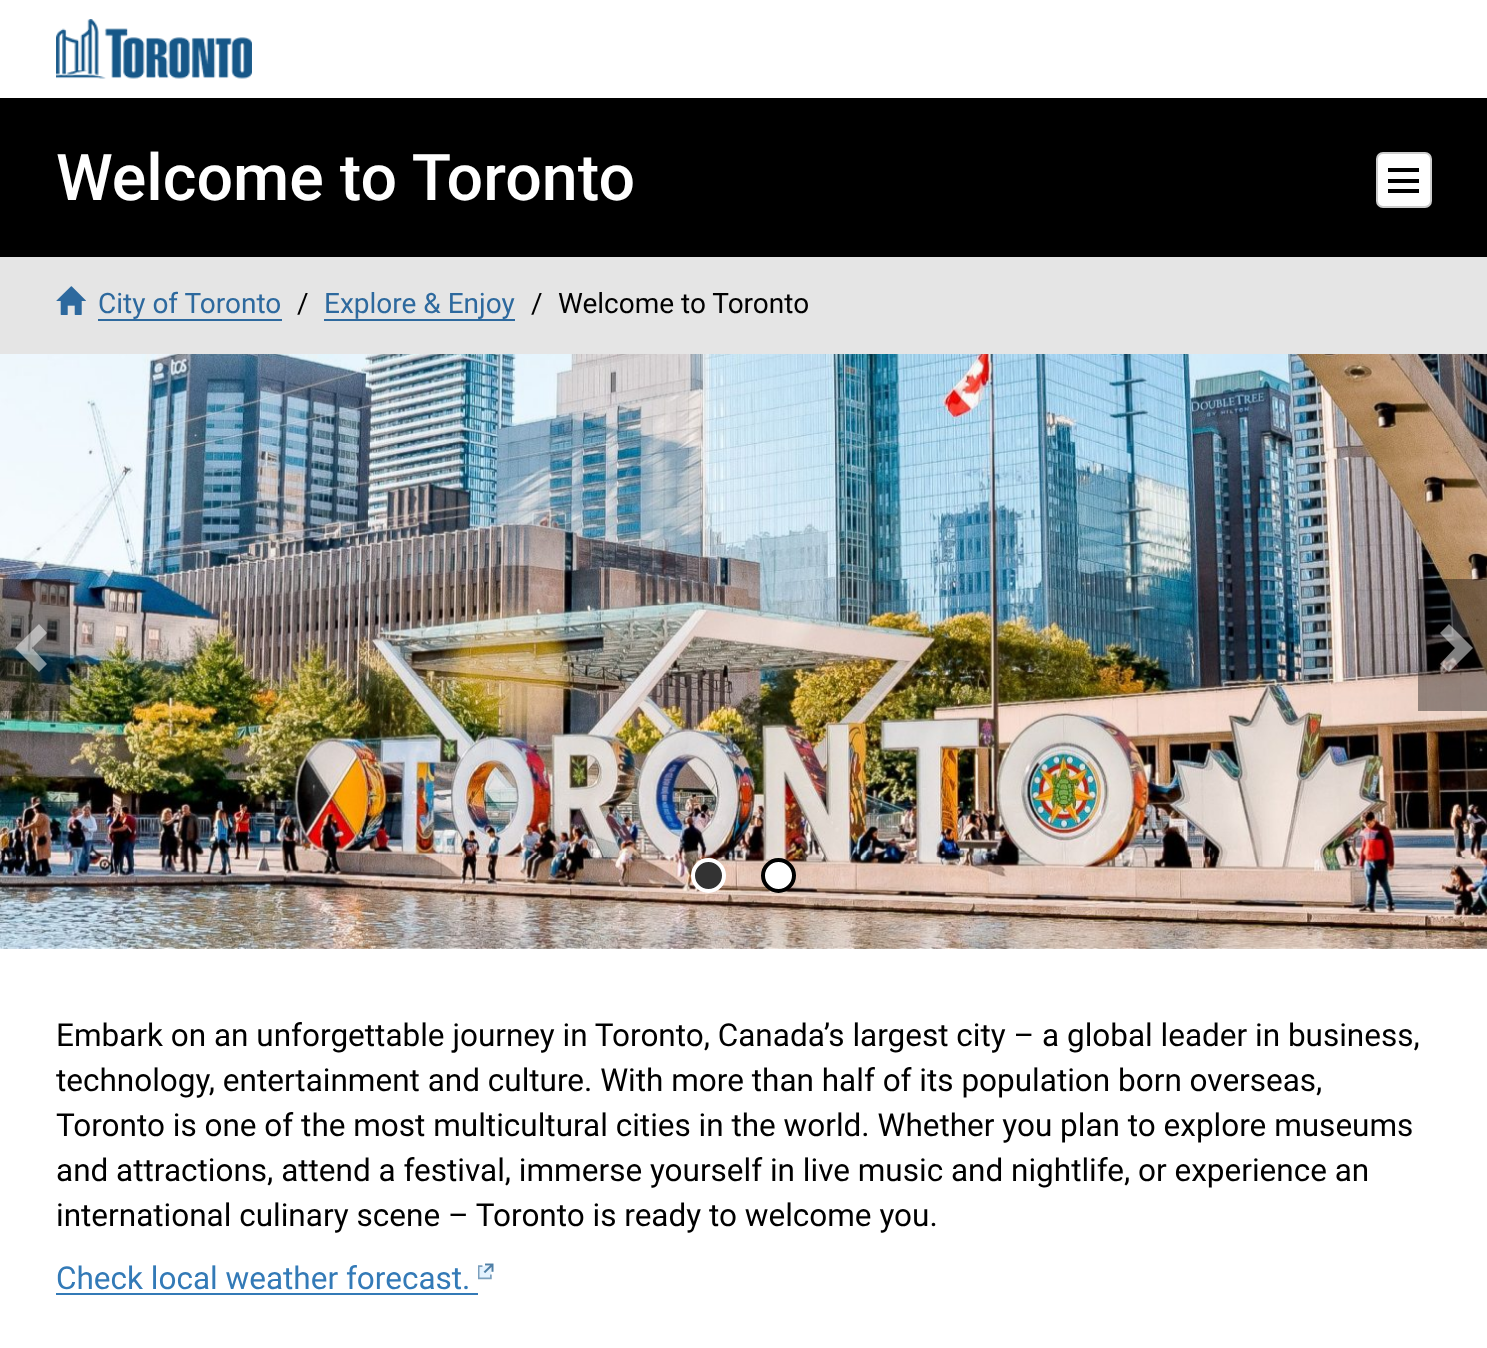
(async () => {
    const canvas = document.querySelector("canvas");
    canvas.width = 1487;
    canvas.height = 1348;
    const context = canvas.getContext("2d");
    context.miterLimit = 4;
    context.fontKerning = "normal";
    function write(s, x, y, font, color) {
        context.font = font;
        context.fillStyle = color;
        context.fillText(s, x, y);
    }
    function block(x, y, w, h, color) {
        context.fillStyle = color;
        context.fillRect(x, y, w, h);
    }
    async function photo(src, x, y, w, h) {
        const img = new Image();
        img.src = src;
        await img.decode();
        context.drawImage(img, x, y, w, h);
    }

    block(0, 0, 1487, 1348, "rgb(255, 255, 255)");
    await photo("media/1.png", 56, 19, 196, 60);
    block(0, 98, 1487, 159, "rgb(0, 0, 0)");
    write("Welcome to Toronto", 56, 200, "500 64.5px Roboto", "rgb(255, 255, 255)");
    context.beginPath();
    context.roundRect(1377, 153, 54, 54, 6);
    context.fill();
    context.strokeStyle = "rgb(204, 204, 204)";
    context.lineWidth = 2;
    context.stroke();
    block(1388, 179, 31, 4, "rgb(0, 0, 0)");
    block(1388, 168, 31, 4, "rgb(0, 0, 0)");
    block(1388, 189, 31, 4, "rgb(0, 0, 0)");
    block(0, 257, 1487, 97, "rgb(229, 229, 229)");
    await photo("media/2.png", 56, 286, 30, 29);
    write("City of Toronto", 98, 313, "28px Roboto", "rgb(45, 105, 158)");
    block(98, 319, 184, 2, "rgb(45, 105, 158)");
    write("/", 297, 313, "28px Roboto", "rgb(0, 0, 0)");
    write("Explore & Enjoy", 324, 313, "28px Roboto", "rgb(45, 105, 158)");
    block(324, 319, 191, 2, "rgb(45, 105, 158)");
    write("/", 531, 313, "28px Roboto", "rgb(0, 0, 0)");
    write("Welcome to Toronto", 558, 313, "28px Roboto", "rgb(0, 0, 0)");
    await photo("media/3.png", 0, 354, 1487, 595);
    block(0, 579, 70, 132, "rgba(0, 0, 0, 0.38)");
    context.fillStyle = "rgba(255, 255, 255, 0.5)";
    context.beginPath();
    context.moveTo(47, 633);
    context.lineTo(32, 648);
    context.lineTo(47, 664);
    context.lineTo(39, 672);
    context.lineTo(15, 648);
    context.lineTo(39, 624);
    context.closePath();
    context.fill();
    block(1418, 579, 69, 132, "rgba(0, 0, 0, 0.38)");
    context.fillStyle = "rgba(255, 255, 255, 0.5)";
    context.beginPath();
    context.moveTo(1473, 648);
    context.lineTo(1449, 672);
    context.lineTo(1440, 664);
    context.lineTo(1455, 648);
    context.lineTo(1440, 633);
    context.lineTo(1449, 624);
    context.closePath();
    context.fill();
    context.fillStyle = "rgb(51, 51, 51)";
    context.beginPath();
    context.arc(708.5, 875.5, 15.5, 0, Math.PI * 2);
    context.fill();
    context.strokeStyle = "rgb(255, 255, 255)";
    context.lineWidth = 4;
    context.stroke();
    context.fillStyle = "rgb(255, 255, 255)";
    context.beginPath();
    context.arc(778.5, 875.5, 15.5, 0, Math.PI * 2);
    context.fill();
    context.strokeStyle = "rgb(0, 0, 0)";
    context.stroke();
    write("Embark on an unforgettable journey in Toronto, Canada’s largest city – a global leader in business,", 56, 1046, "31.5px Roboto", "rgb(0, 0, 0)");
    write("technology, entertainment and culture. With more than half of its population born overseas,", 56, 1091, "31.5px Roboto", "rgb(0, 0, 0)");
    write("Toronto is one of the most multicultural cities in the world. Whether you plan to explore museums", 56, 1136, "31.5px Roboto", "rgb(0, 0, 0)");
    write("and attractions, attend a festival, immerse yourself in live music and nightlife, or experience an", 56, 1181, "31.5px Roboto", "rgb(0, 0, 0)");
    write("international culinary scene – Toronto is ready to welcome you.", 56, 1226, "31.5px Roboto", "rgb(0, 0, 0)");
    write("Check local weather forecast.", 56, 1289, "31.5px Roboto", "rgb(51, 122, 183)");
    block(56, 1293, 422, 2, "rgb(51, 122, 183)");
    await photo("media/4.png", 478, 1263, 16, 17);
})();
